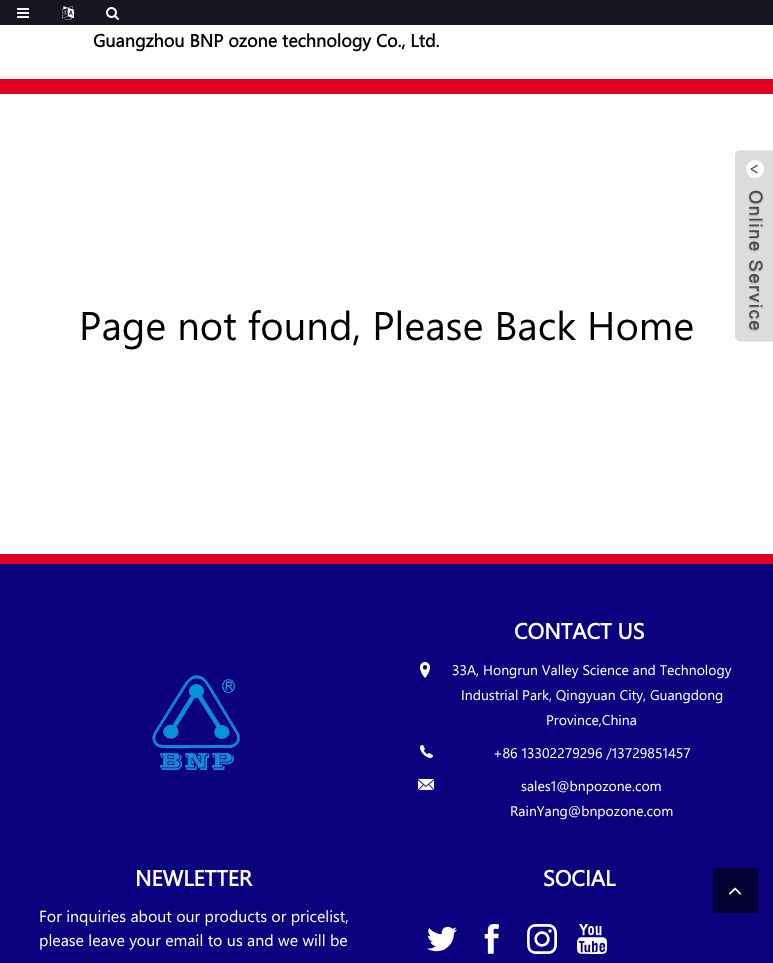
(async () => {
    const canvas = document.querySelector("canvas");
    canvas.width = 773;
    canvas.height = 963;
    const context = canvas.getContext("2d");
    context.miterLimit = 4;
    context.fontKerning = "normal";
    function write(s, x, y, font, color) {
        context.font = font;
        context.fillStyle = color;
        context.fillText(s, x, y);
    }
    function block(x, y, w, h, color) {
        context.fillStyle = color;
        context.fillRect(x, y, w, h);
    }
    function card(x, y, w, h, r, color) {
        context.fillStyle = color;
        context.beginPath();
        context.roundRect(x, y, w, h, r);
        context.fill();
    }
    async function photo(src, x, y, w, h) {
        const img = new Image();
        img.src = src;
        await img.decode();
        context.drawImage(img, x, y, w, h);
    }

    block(0, 0, 773, 963, "rgb(255, 255, 255)");
    block(0, 0, 773, 25, "rgb(22, 22, 34)");
    await photo("media/1.png", 17, 8, 12, 10);
    await photo("media/2.png", 62, 6, 12, 14);
    await photo("media/3.png", 106, 7, 13, 13);
    block(0, 79, 773, 15, "rgb(224, 0, 36)");
    write("Guangzhou BNP ozone technology Co., Ltd.", 93, 47, "bold 18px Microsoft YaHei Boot", "rgb(0, 0, 0)");
    write("Page not found, Please Back Home", 79, 340, "40px Microsoft YaHei Boot", "rgb(0, 0, 0)");
    await photo("media/4.png", 735, 150, 38, 192);
    block(0, 564, 773, 399, "rgb(11, 1, 126)");
    block(0, 554, 773, 10, "rgb(224, 0, 36)");
    await photo("media/5.png", 152, 675, 88, 95);
    write("CONTACT US", 514, 639, "bold 22px Microsoft YaHei Boot", "rgb(255, 255, 255)");
    await photo("media/6.png", 420, 662, 10, 16);
    write("33A, Hongrun Valley Science and Technology", 452, 675, "14px Microsoft YaHei Boot", "rgb(255, 255, 255)");
    write("Industrial Park, Qingyuan City, Guangdong", 461, 700, "14px Microsoft YaHei Boot", "rgb(255, 255, 255)");
    write("Province,China", 546, 725, "14px Microsoft YaHei Boot", "rgb(255, 255, 255)");
    await photo("media/7.png", 420, 745, 13, 13);
    write("+86 13302279296 /13729851457", 493, 758, "14px Microsoft YaHei Boot", "rgb(255, 255, 255)");
    await photo("media/8.png", 418, 779, 16, 11);
    write("sales1@bnpozone.com", 521, 791, "14px Microsoft YaHei Boot", "rgb(255, 255, 255)");
    write("RainYang@bnpozone.com", 510, 816, "14px Microsoft YaHei Boot", "rgb(255, 255, 255)");
    write("NEWLETTER", 135, 886, "bold 22px Microsoft YaHei Boot", "rgb(255, 255, 255)");
    write("For inquiries about our products or pricelist,", 39, 922, "16px Microsoft YaHei Boot", "rgb(255, 255, 255)");
    write("please leave your email to us and we will be", 39, 946, "16px Microsoft YaHei Boot", "rgb(255, 255, 255)");
    write("SOCIAL", 543, 886, "bold 22px Microsoft YaHei Boot", "rgb(255, 255, 255)");
    await photo("media/9.png", 427, 926, 30, 26);
    await photo("media/10.png", 484, 924, 16, 30);
    await photo("media/11.png", 527, 924, 30, 30);
    await photo("media/12.png", 577, 924, 30, 30);
    card(713, 868, 45, 45, 2, "rgb(4, 0, 50)");
    await photo("media/13.png", 729, 887, 13, 8);
})();
